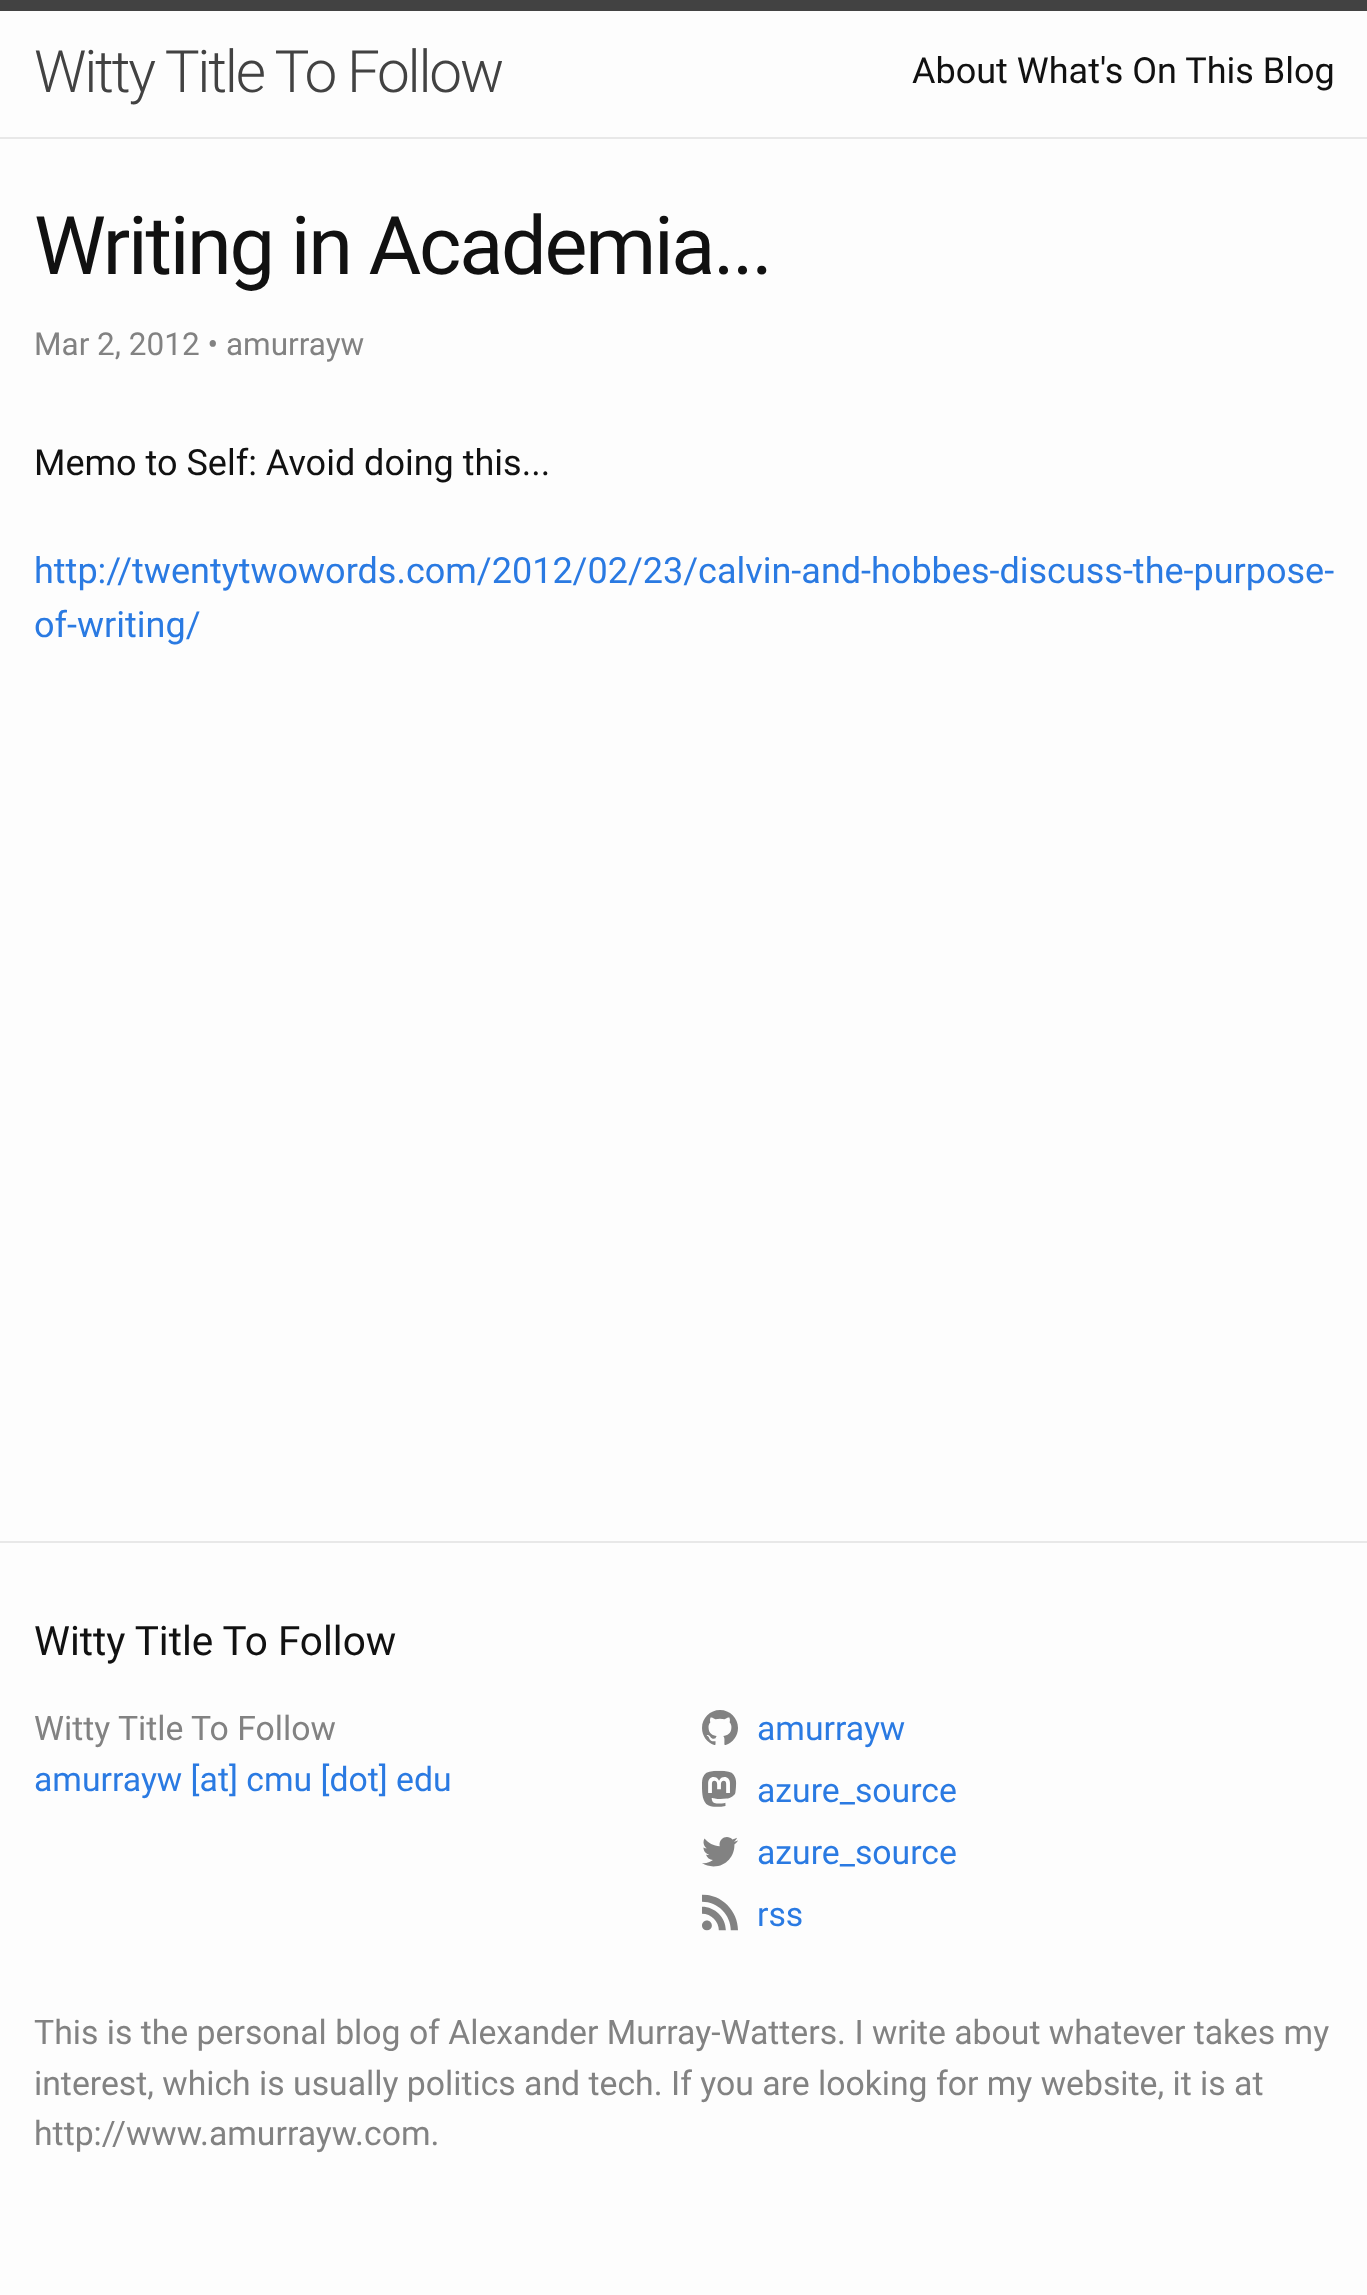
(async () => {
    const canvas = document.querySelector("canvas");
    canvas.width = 1367;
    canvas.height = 2295;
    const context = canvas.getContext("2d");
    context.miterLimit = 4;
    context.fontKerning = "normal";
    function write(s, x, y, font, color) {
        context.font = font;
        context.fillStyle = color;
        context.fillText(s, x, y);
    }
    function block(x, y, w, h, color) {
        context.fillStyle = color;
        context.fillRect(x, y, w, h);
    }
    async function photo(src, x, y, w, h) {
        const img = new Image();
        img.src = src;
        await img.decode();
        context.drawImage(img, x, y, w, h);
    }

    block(0, 0, 1367, 2295, "rgb(253, 253, 253)");
    block(0, 0, 1367, 11, "rgb(66, 66, 66)");
    block(0, 137, 1367, 2, "rgb(232, 232, 232)");
    context.letterSpacing = "-2.25px";
    write("Witty Title To Follow", 34, 92, "300 58.5px Roboto", "rgb(66, 66, 66)");
    context.letterSpacing = "0px";
    write("About What's On This Blog", 912, 83, "36px Roboto", "rgb(17, 17, 17)");
    context.letterSpacing = "-2.25px";
    write("Writing in Academia...", 34, 274, "81px Roboto", "rgb(17, 17, 17)");
    context.letterSpacing = "0px";
    write("Mar 2, 2012 • amurrayw", 34, 355, "31.5px Roboto", "rgb(130, 130, 130)");
    write("Memo to Self: Avoid doing this...", 34, 475, "36px Roboto", "rgb(17, 17, 17)");
    write("http://twentytwowords.com/2012/02/23/calvin-and-hobbes-discuss-the-purpose-", 34, 583, "36px Roboto", "rgb(42, 122, 226)");
    write("of-writing/", 34, 637, "36px Roboto", "rgb(42, 122, 226)");
    block(0, 1541, 1367, 2, "rgb(232, 232, 232)");
    write("Witty Title To Follow", 34, 1655, "40.5px Roboto", "rgb(17, 17, 17)");
    write("Witty Title To Follow", 34, 1740, "33.75px Roboto", "rgb(130, 130, 130)");
    write("amurrayw [at] cmu [dot] edu", 34, 1791, "33.75px Roboto", "rgb(42, 122, 226)");
    await photo("media/1.png", 702, 1710, 36, 35);
    write("amurrayw", 757, 1740, "33.75px Roboto", "rgb(42, 122, 226)");
    await photo("media/2.png", 702, 1770, 35, 37);
    write("azure_source", 757, 1802, "33.75px Roboto", "rgb(42, 122, 226)");
    await photo("media/3.png", 702, 1837, 36, 30);
    write("azure_source", 757, 1864, "33.75px Roboto", "rgb(42, 122, 226)");
    await photo("media/4.png", 702, 1894, 36, 37);
    write("rss", 757, 1926, "33.75px Roboto", "rgb(42, 122, 226)");
    write("This is the personal blog of Alexander Murray-Watters. I write about whatever takes my", 34, 2044, "33.75px Roboto", "rgb(130, 130, 130)");
    write("interest, which is usually politics and tech. If you are looking for my website, it is at", 34, 2095, "33.75px Roboto", "rgb(130, 130, 130)");
    write("http://www.amurrayw.com.", 34, 2145, "33.75px Roboto", "rgb(130, 130, 130)");
})();
